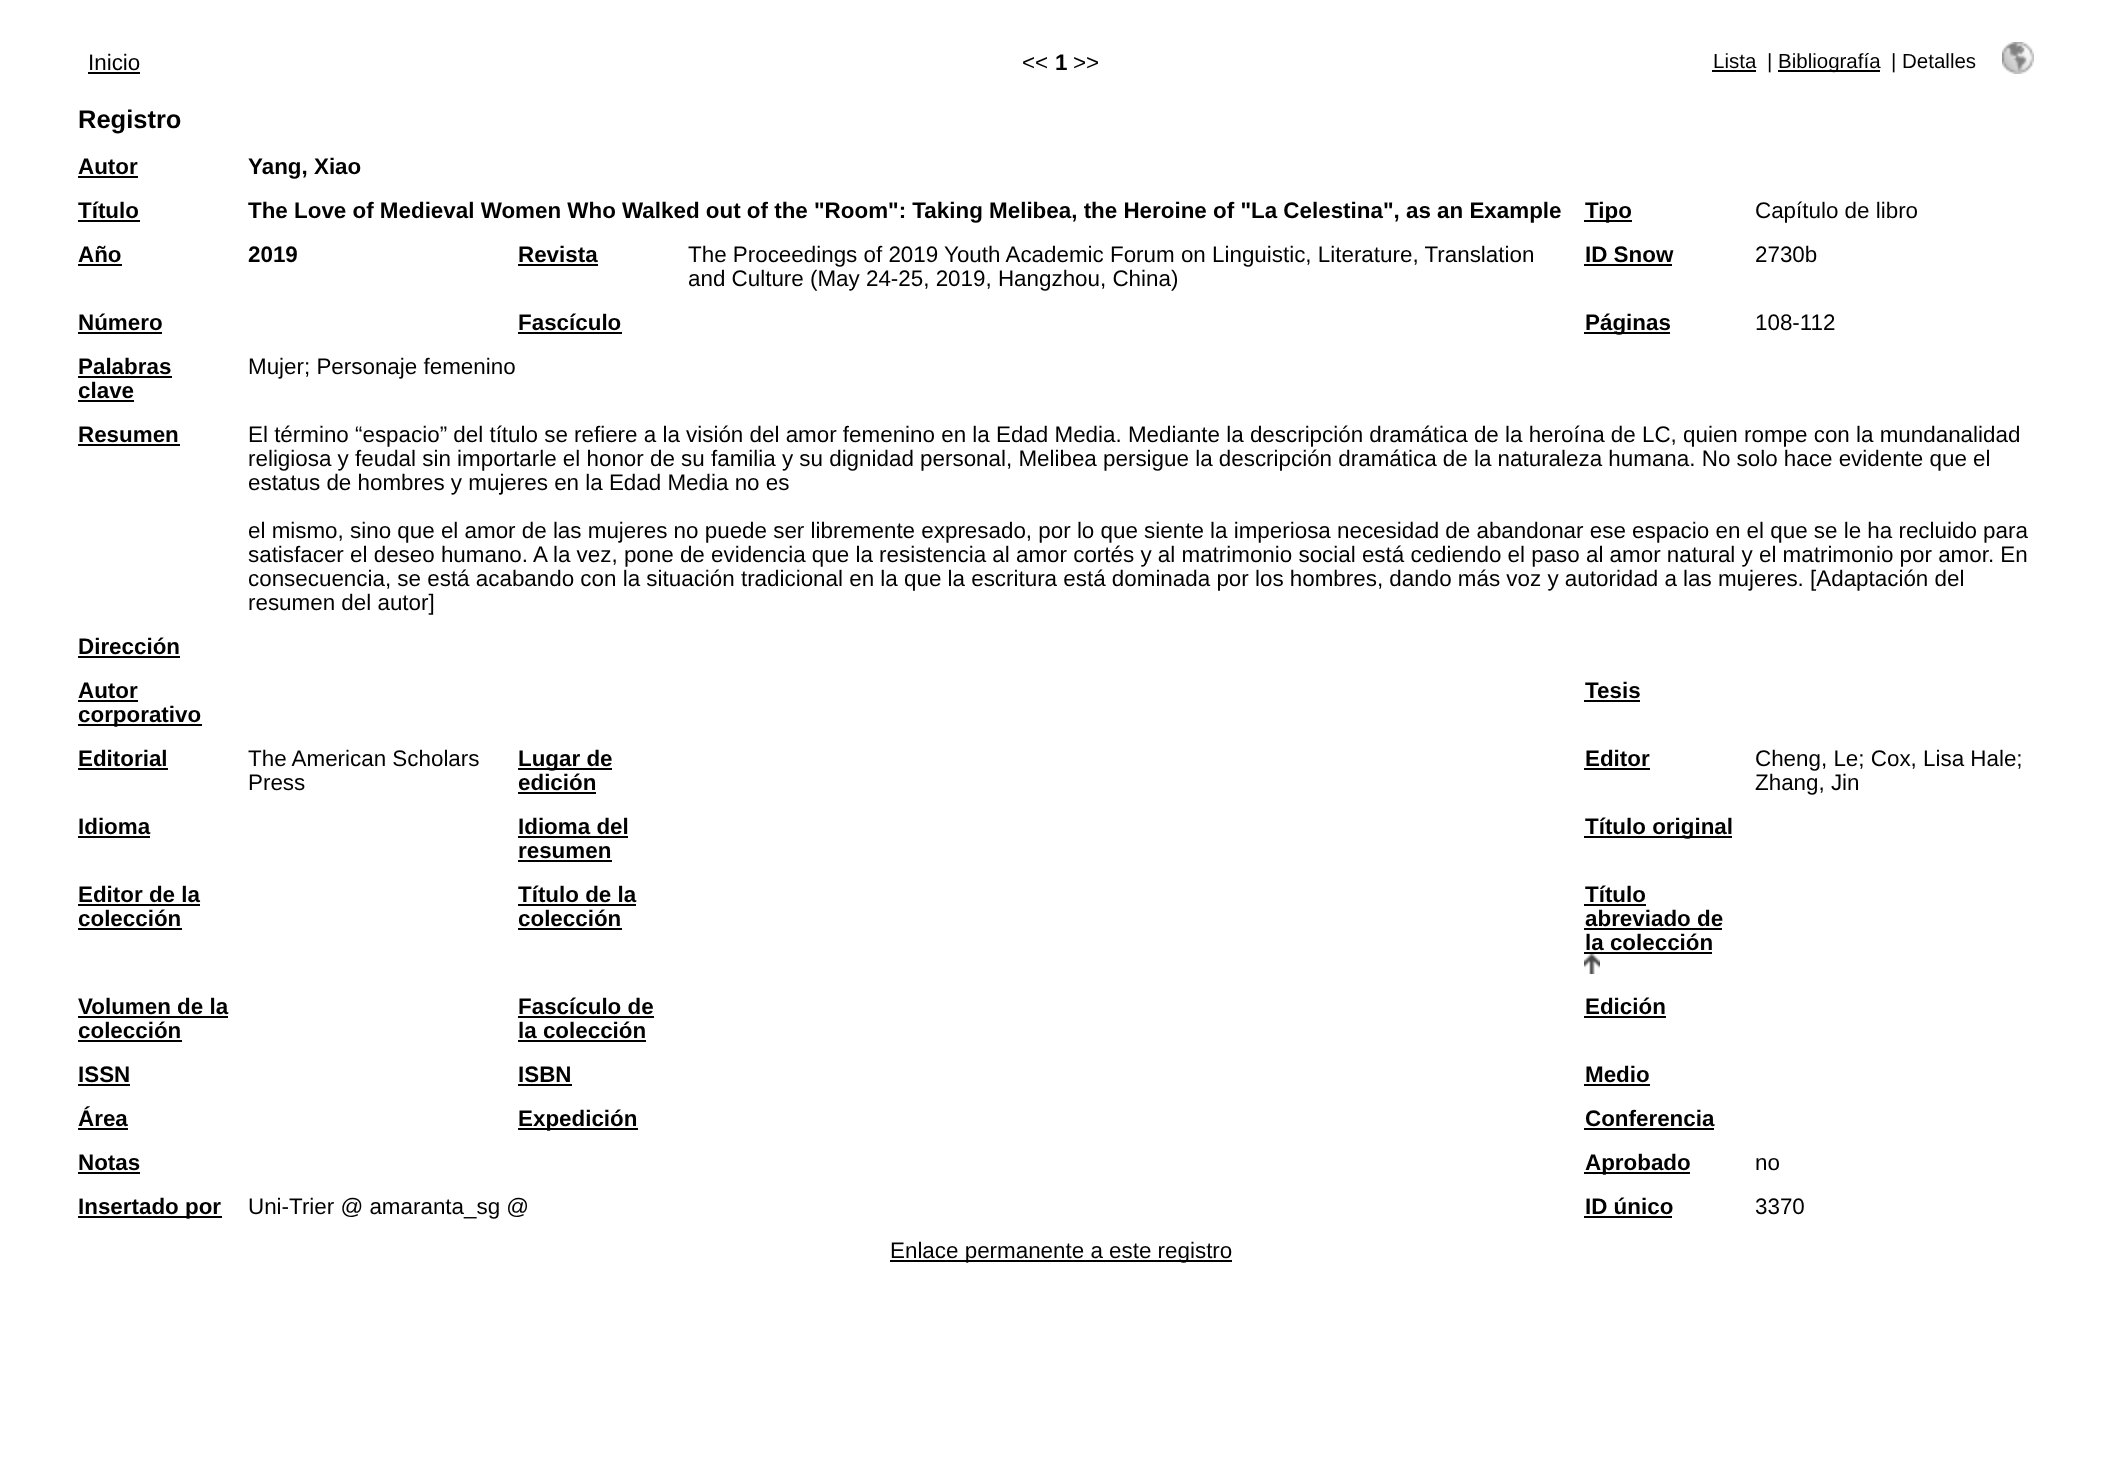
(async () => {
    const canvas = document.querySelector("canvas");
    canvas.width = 2122;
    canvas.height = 1474;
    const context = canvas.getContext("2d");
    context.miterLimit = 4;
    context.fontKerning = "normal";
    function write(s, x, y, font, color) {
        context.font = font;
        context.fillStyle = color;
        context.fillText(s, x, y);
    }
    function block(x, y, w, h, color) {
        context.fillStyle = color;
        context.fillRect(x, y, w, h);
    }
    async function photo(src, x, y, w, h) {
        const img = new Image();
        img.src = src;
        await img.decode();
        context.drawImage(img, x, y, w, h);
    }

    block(0, 0, 2122, 1474, "rgb(255, 255, 255)");
    write("Inicio", 88, 70, "22.4px Liberation Sans", "rgb(0, 0, 0)");
    block(88, 72, 52, 2, "rgb(0, 0, 0)");
    write("<<", 1022, 70, "22.4px Liberation Sans", "rgb(0, 0, 0)");
    write("1", 1055, 70, "bold 22.4px Liberation Sans", "rgb(0, 0, 0)");
    write(">>", 1073, 70, "22.4px Liberation Sans", "rgb(0, 0, 0)");
    write("Lista", 1713, 68, "20.5px Liberation Sans", "rgb(0, 0, 0)");
    block(1712, 70, 44, 2, "rgb(0, 0, 0)");
    write("|", 1767, 68, "20.5px Liberation Sans", "rgb(0, 0, 0)");
    block(1778, 70, 102, 2, "rgb(0, 0, 0)");
    write("Bibliografía", 1778, 68, "20.5px Liberation Sans", "rgb(0, 0, 0)");
    write("| Detalles", 1891, 68, "20.5px Liberation Sans", "rgb(0, 0, 0)");
    await photo("media/1.png", 2002, 42, 32, 32);
    write("Registro", 78, 128, "bold 25.5px Liberation Sans", "rgb(0, 0, 0)");
    write("Autor", 78, 174, "bold 22.4px Liberation Sans", "rgb(0, 0, 0)");
    block(78, 176, 60, 2, "rgb(0, 0, 0)");
    write("Yang, Xiao", 248, 174, "bold 22.4px Liberation Sans", "rgb(0, 0, 0)");
    write("Título", 78, 218, "bold 22.4px Liberation Sans", "rgb(0, 0, 0)");
    block(78, 220, 62, 2, "rgb(0, 0, 0)");
    write("The Love of Medieval Women Who Walked out of the \"Room\": Taking Melibea, the Heroine of \"La Celestina\", as an Example", 248, 218, "bold 22.4px Liberation Sans", "rgb(0, 0, 0)");
    block(1584, 220, 48, 2, "rgb(0, 0, 0)");
    write("Tipo", 1585, 218, "bold 22.4px Liberation Sans", "rgb(0, 0, 0)");
    write("Capítulo de libro", 1755, 218, "22.4px Liberation Sans", "rgb(0, 0, 0)");
    write("Año", 78, 262, "bold 22.4px Liberation Sans", "rgb(0, 0, 0)");
    block(78, 264, 44, 2, "rgb(0, 0, 0)");
    write("2019", 248, 262, "bold 22.4px Liberation Sans", "rgb(0, 0, 0)");
    write("Revista", 518, 262, "bold 22.4px Liberation Sans", "rgb(0, 0, 0)");
    block(518, 264, 80, 2, "rgb(0, 0, 0)");
    write("The Proceedings of 2019 Youth Academic Forum on Linguistic, Literature, Translation", 688, 262, "22.4px Liberation Sans", "rgb(0, 0, 0)");
    write("and Culture (May 24-25, 2019, Hangzhou, China)", 688, 286, "22.4px Liberation Sans", "rgb(0, 0, 0)");
    write("ID Snow", 1585, 262, "bold 22.4px Liberation Sans", "rgb(0, 0, 0)");
    block(1584, 264, 88, 2, "rgb(0, 0, 0)");
    write("2730b", 1755, 262, "22.4px Liberation Sans", "rgb(0, 0, 0)");
    write("Número", 78, 330, "bold 22.4px Liberation Sans", "rgb(0, 0, 0)");
    block(78, 332, 84, 2, "rgb(0, 0, 0)");
    write("Fascículo", 518, 330, "bold 22.4px Liberation Sans", "rgb(0, 0, 0)");
    block(518, 332, 104, 2, "rgb(0, 0, 0)");
    block(1584, 332, 86, 2, "rgb(0, 0, 0)");
    write("Páginas", 1585, 330, "bold 22.4px Liberation Sans", "rgb(0, 0, 0)");
    write("108-112", 1755, 330, "22.4px Liberation Sans", "rgb(0, 0, 0)");
    write("Palabras", 78, 374, "bold 22.4px Liberation Sans", "rgb(0, 0, 0)");
    block(78, 376, 94, 2, "rgb(0, 0, 0)");
    write("clave", 78, 398, "bold 22.4px Liberation Sans", "rgb(0, 0, 0)");
    block(78, 400, 56, 2, "rgb(0, 0, 0)");
    write("Mujer; Personaje femenino", 248, 374, "22.4px Liberation Sans", "rgb(0, 0, 0)");
    write("Resumen", 78, 442, "bold 22.4px Liberation Sans", "rgb(0, 0, 0)");
    block(78, 444, 102, 2, "rgb(0, 0, 0)");
    write("El término “espacio” del título se refiere a la visión del amor femenino en la Edad Media. Mediante la descripción dramática de la heroína de LC, quien rompe con la mundanalidad", 248, 442, "22.4px Liberation Sans", "rgb(0, 0, 0)");
    write("religiosa y feudal sin importarle el honor de su familia y su dignidad personal, Melibea persigue la descripción dramática de la naturaleza humana. No solo hace evidente que el", 248, 466, "22.4px Liberation Sans", "rgb(0, 0, 0)");
    write("estatus de hombres y mujeres en la Edad Media no es", 248, 490, "22.4px Liberation Sans", "rgb(0, 0, 0)");
    write("el mismo, sino que el amor de las mujeres no puede ser libremente expresado, por lo que siente la imperiosa necesidad de abandonar ese espacio en el que se le ha recluido para", 248, 538, "22.4px Liberation Sans", "rgb(0, 0, 0)");
    write("satisfacer el deseo humano. A la vez, pone de evidencia que la resistencia al amor cortés y al matrimonio social está cediendo el paso al amor natural y el matrimonio por amor. En", 248, 562, "22.4px Liberation Sans", "rgb(0, 0, 0)");
    write("consecuencia, se está acabando con la situación tradicional en la que la escritura está dominada por los hombres, dando más voz y autoridad a las mujeres. [Adaptación del", 248, 586, "22.4px Liberation Sans", "rgb(0, 0, 0)");
    write("resumen del autor]", 248, 610, "22.4px Liberation Sans", "rgb(0, 0, 0)");
    write("Dirección", 78, 654, "bold 22.4px Liberation Sans", "rgb(0, 0, 0)");
    block(78, 656, 102, 2, "rgb(0, 0, 0)");
    write("Autor", 78, 698, "bold 22.4px Liberation Sans", "rgb(0, 0, 0)");
    block(78, 700, 60, 2, "rgb(0, 0, 0)");
    block(78, 724, 124, 2, "rgb(0, 0, 0)");
    write("corporativo", 78, 722, "bold 22.4px Liberation Sans", "rgb(0, 0, 0)");
    write("Tesis", 1585, 698, "bold 22.4px Liberation Sans", "rgb(0, 0, 0)");
    block(1584, 700, 56, 2, "rgb(0, 0, 0)");
    write("Editorial", 78, 766, "bold 22.4px Liberation Sans", "rgb(0, 0, 0)");
    block(78, 768, 90, 2, "rgb(0, 0, 0)");
    write("The American Scholars", 248, 766, "22.4px Liberation Sans", "rgb(0, 0, 0)");
    write("Press", 248, 790, "22.4px Liberation Sans", "rgb(0, 0, 0)");
    block(518, 768, 94, 2, "rgb(0, 0, 0)");
    write("Lugar de", 518, 766, "bold 22.4px Liberation Sans", "rgb(0, 0, 0)");
    write("edición", 518, 790, "bold 22.4px Liberation Sans", "rgb(0, 0, 0)");
    block(518, 792, 78, 2, "rgb(0, 0, 0)");
    write("Editor", 1585, 766, "bold 22.4px Liberation Sans", "rgb(0, 0, 0)");
    block(1584, 768, 66, 2, "rgb(0, 0, 0)");
    write("Cheng, Le; Cox, Lisa Hale;", 1755, 766, "22.4px Liberation Sans", "rgb(0, 0, 0)");
    write("Zhang, Jin", 1755, 790, "22.4px Liberation Sans", "rgb(0, 0, 0)");
    write("Idioma", 78, 834, "bold 22.4px Liberation Sans", "rgb(0, 0, 0)");
    block(78, 836, 72, 2, "rgb(0, 0, 0)");
    write("Idioma del", 518, 834, "bold 22.4px Liberation Sans", "rgb(0, 0, 0)");
    block(518, 836, 110, 2, "rgb(0, 0, 0)");
    write("resumen", 518, 858, "bold 22.4px Liberation Sans", "rgb(0, 0, 0)");
    block(518, 860, 94, 2, "rgb(0, 0, 0)");
    block(1584, 836, 148, 2, "rgb(0, 0, 0)");
    write("Título original", 1585, 834, "bold 22.4px Liberation Sans", "rgb(0, 0, 0)");
    write("Editor de la", 78, 902, "bold 22.4px Liberation Sans", "rgb(0, 0, 0)");
    block(78, 904, 122, 2, "rgb(0, 0, 0)");
    write("colección", 78, 926, "bold 22.4px Liberation Sans", "rgb(0, 0, 0)");
    block(78, 928, 104, 2, "rgb(0, 0, 0)");
    write("Título de la", 518, 902, "bold 22.4px Liberation Sans", "rgb(0, 0, 0)");
    block(518, 904, 118, 2, "rgb(0, 0, 0)");
    write("colección", 518, 926, "bold 22.4px Liberation Sans", "rgb(0, 0, 0)");
    block(518, 928, 104, 2, "rgb(0, 0, 0)");
    write("Título", 1585, 902, "bold 22.4px Liberation Sans", "rgb(0, 0, 0)");
    block(1584, 904, 62, 2, "rgb(0, 0, 0)");
    write("abreviado de", 1585, 926, "bold 22.4px Liberation Sans", "rgb(0, 0, 0)");
    block(1584, 928, 138, 2, "rgb(0, 0, 0)");
    write("la colección", 1585, 950, "bold 22.4px Liberation Sans", "rgb(0, 0, 0)");
    block(1584, 952, 128, 2, "rgb(0, 0, 0)");
    await photo("media/2.png", 1584, 954, 16, 20);
    write("Volumen de la", 78, 1014, "bold 22.4px Liberation Sans", "rgb(0, 0, 0)");
    block(78, 1016, 150, 2, "rgb(0, 0, 0)");
    write("colección", 78, 1038, "bold 22.4px Liberation Sans", "rgb(0, 0, 0)");
    block(78, 1040, 104, 2, "rgb(0, 0, 0)");
    write("Fascículo de", 518, 1014, "bold 22.4px Liberation Sans", "rgb(0, 0, 0)");
    block(518, 1016, 136, 2, "rgb(0, 0, 0)");
    write("la colección", 518, 1038, "bold 22.4px Liberation Sans", "rgb(0, 0, 0)");
    block(518, 1040, 128, 2, "rgb(0, 0, 0)");
    write("Edición", 1585, 1014, "bold 22.4px Liberation Sans", "rgb(0, 0, 0)");
    block(1584, 1016, 82, 2, "rgb(0, 0, 0)");
    write("ISSN", 78, 1082, "bold 22.4px Liberation Sans", "rgb(0, 0, 0)");
    block(78, 1084, 52, 2, "rgb(0, 0, 0)");
    write("ISBN", 518, 1082, "bold 22.4px Liberation Sans", "rgb(0, 0, 0)");
    block(518, 1084, 54, 2, "rgb(0, 0, 0)");
    write("Medio", 1585, 1082, "bold 22.4px Liberation Sans", "rgb(0, 0, 0)");
    block(1584, 1084, 66, 2, "rgb(0, 0, 0)");
    write("Área", 78, 1126, "bold 22.4px Liberation Sans", "rgb(0, 0, 0)");
    block(78, 1128, 50, 2, "rgb(0, 0, 0)");
    block(518, 1128, 120, 2, "rgb(0, 0, 0)");
    write("Expedición", 518, 1126, "bold 22.4px Liberation Sans", "rgb(0, 0, 0)");
    write("Conferencia", 1585, 1126, "bold 22.4px Liberation Sans", "rgb(0, 0, 0)");
    block(1584, 1128, 130, 2, "rgb(0, 0, 0)");
    write("Notas", 78, 1170, "bold 22.4px Liberation Sans", "rgb(0, 0, 0)");
    block(78, 1172, 62, 2, "rgb(0, 0, 0)");
    block(1584, 1172, 106, 2, "rgb(0, 0, 0)");
    write("Aprobado", 1585, 1170, "bold 22.4px Liberation Sans", "rgb(0, 0, 0)");
    write("no", 1755, 1170, "22.4px Liberation Sans", "rgb(0, 0, 0)");
    block(78, 1216, 144, 2, "rgb(0, 0, 0)");
    write("Insertado por", 78, 1214, "bold 22.4px Liberation Sans", "rgb(0, 0, 0)");
    write("Uni-Trier @ amaranta_sg @", 248, 1214, "22.4px Liberation Sans", "rgb(0, 0, 0)");
    write("ID único", 1585, 1214, "bold 22.4px Liberation Sans", "rgb(0, 0, 0)");
    block(1584, 1216, 88, 2, "rgb(0, 0, 0)");
    write("3370", 1755, 1214, "22.4px Liberation Sans", "rgb(0, 0, 0)");
    block(890, 1260, 342, 2, "rgb(0, 0, 0)");
    write("Enlace permanente a este registro", 890, 1258, "22.4px Liberation Sans", "rgb(0, 0, 0)");
})();
